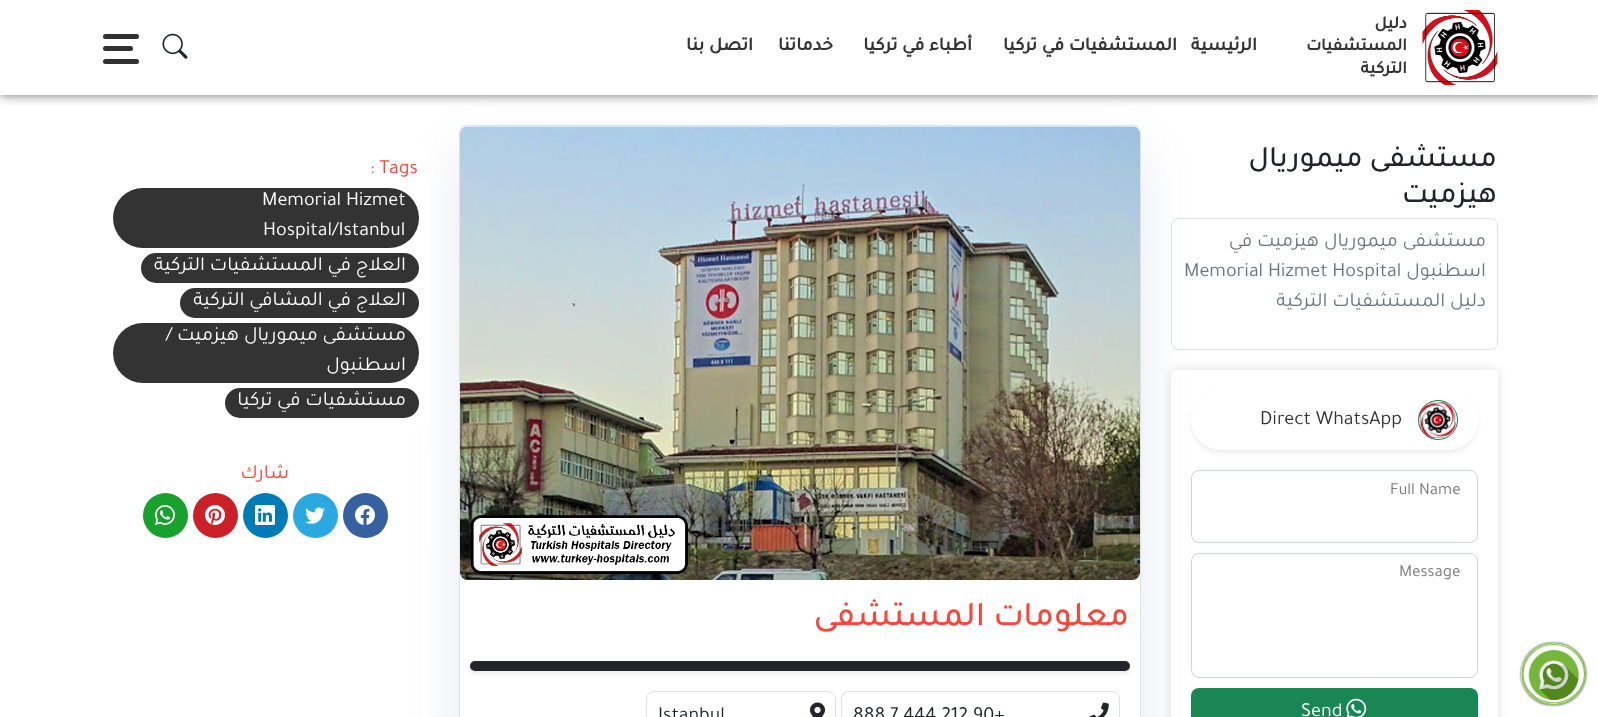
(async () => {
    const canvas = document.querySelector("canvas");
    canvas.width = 1598;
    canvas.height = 717;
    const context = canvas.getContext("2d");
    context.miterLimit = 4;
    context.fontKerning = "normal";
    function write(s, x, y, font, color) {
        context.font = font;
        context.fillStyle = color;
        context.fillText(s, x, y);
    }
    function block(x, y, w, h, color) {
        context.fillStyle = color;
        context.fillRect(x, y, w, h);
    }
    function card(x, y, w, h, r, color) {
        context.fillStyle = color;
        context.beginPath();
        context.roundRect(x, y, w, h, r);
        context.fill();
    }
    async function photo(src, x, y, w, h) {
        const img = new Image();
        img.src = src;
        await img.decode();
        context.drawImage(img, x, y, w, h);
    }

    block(0, 0, 1598, 717, "rgb(255, 255, 255)");
    context.save();
    context.beginPath();
    context.rect(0, 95, 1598, 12);
    context.clip();
    context.fillStyle = "rgb(110, 110, 110)";
    context.filter = "blur(6px)";
    context.beginPath();
    context.rect(0, 0, 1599, 95);
    context.fill();
    context.filter = "none";
    context.restore();
    await photo("media/1.png", 1422, 10, 76, 75);
    context.direction = "rtl";
    write("دليل", 1407, 28, "bold 17.5px Tajawal", "rgb(51, 51, 51)");
    write("المستشفيات", 1407, 50, "bold 17.5px Tajawal", "rgb(51, 51, 51)");
    write("التركية", 1407, 73, "bold 17.5px Tajawal", "rgb(51, 51, 51)");
    context.letterSpacing = "1.25px";
    write("الرئيسية", 1257, 50, "bold 18.75px Tajawal", "rgb(51, 51, 51)");
    context.wordSpacing = "-1px";
    write("المستشفيات في تركيا", 1177, 50, "bold 18.75px Tajawal", "rgb(51, 51, 51)");
    write("أطباء في تركيا", 972, 50, "bold 18.75px Tajawal", "rgb(51, 51, 51)");
    context.wordSpacing = "0px";
    write("خدماتنا", 833, 50, "bold 18.75px Tajawal", "rgb(51, 51, 51)");
    context.wordSpacing = "-1px";
    write("اتصل بنا", 753, 50, "bold 18.75px Tajawal", "rgb(51, 51, 51)");
    await photo("media/2.png", 162, 33, 26, 26);
    card(103, 34, 36, 5, 2.5, "rgb(49, 49, 49)");
    card(103, 46, 30, 5, 2.5, "rgb(49, 49, 49)");
    card(103, 59, 36, 5, 2.5, "rgb(49, 49, 49)");
    context.save();
    context.beginPath();
    context.moveTo(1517, 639);
    context.lineTo(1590, 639);
    context.lineTo(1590, 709);
    context.lineTo(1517, 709);
    context.closePath();
    context.moveTo(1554, 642.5);
    context.bezierCurveTo(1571.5, 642.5, 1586, 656.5, 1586, 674);
    context.bezierCurveTo(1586, 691, 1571.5, 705, 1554, 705);
    context.bezierCurveTo(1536, 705, 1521, 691, 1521, 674);
    context.bezierCurveTo(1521, 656.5, 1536, 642.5, 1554, 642.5);
    context.closePath();
    context.clip("evenodd");
    context.fillStyle = "rgb(51, 51, 51)";
    context.filter = "blur(1px)";
    context.beginPath();
    context.roundRect(1521, 643, 65, 62, 31);
    context.fill();
    context.filter = "none";
    context.restore();
    context.beginPath();
    context.moveTo(1554, 643);
    context.bezierCurveTo(1571.5, 643, 1585.5, 657, 1585.5, 674);
    context.bezierCurveTo(1585.5, 690.5, 1571.5, 704.5, 1554, 704.5);
    context.bezierCurveTo(1536, 704.5, 1522, 690.5, 1522, 674);
    context.bezierCurveTo(1522, 657, 1536, 643, 1554, 643);
    context.closePath();
    context.strokeStyle = "rgb(134, 192, 81)";
    context.lineWidth = 1.2;
    context.stroke();
    await photo("media/3.png", 1528, 650, 51, 50);
    context.beginPath();
    context.moveTo(1554, 644.5);
    context.bezierCurveTo(1570.5, 644.5, 1584.5, 657.5, 1584.5, 674);
    context.bezierCurveTo(1584.5, 690, 1570.5, 703, 1554, 703);
    context.bezierCurveTo(1537, 703, 1523, 690, 1523, 674);
    context.bezierCurveTo(1523, 657.5, 1537, 644.5, 1554, 644.5);
    context.closePath();
    context.stroke();
    context.letterSpacing = "0px";
    context.wordSpacing = "0px";
    write("مستشفى ميموريال", 1497, 166, "500 30px Tajawal", "rgb(33, 37, 41)");
    write("هيزميت", 1497, 202, "500 30px Tajawal", "rgb(33, 37, 41)");
    context.beginPath();
    context.roundRect(1171.5, 218.5, 326, 131, 7.5);
    context.strokeStyle = "rgb(222, 226, 230)";
    context.lineWidth = 1;
    context.stroke();
    write("مستشفى ميموريال هيزميت في", 1486, 246, "20px Tajawal", "rgb(108, 117, 125)");
    write("اسطنبول", 1486, 276, "20px Tajawal", "rgb(108, 117, 125)");
    context.direction = "ltr";
    write("Memorial Hizmet Hospital", 1184, 276, "20px Tajawal", "rgb(108, 117, 125)");
    context.direction = "rtl";
    write("دليل المستشفيات التركية", 1486, 306, "20px Tajawal", "rgb(108, 117, 125)");
    context.save();
    context.beginPath();
    context.moveTo(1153, 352);
    context.lineTo(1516, 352);
    context.lineTo(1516, 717);
    context.lineTo(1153, 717);
    context.closePath();
    context.moveTo(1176, 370);
    context.lineTo(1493, 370);
    context.bezierCurveTo(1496, 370, 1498, 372, 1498, 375);
    context.lineTo(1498, 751);
    context.bezierCurveTo(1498, 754, 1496, 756, 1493, 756);
    context.lineTo(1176, 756);
    context.bezierCurveTo(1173, 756, 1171, 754, 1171, 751);
    context.lineTo(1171, 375);
    context.bezierCurveTo(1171, 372, 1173, 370, 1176, 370);
    context.closePath();
    context.clip("evenodd");
    context.fillStyle = "rgb(221, 221, 221)";
    context.filter = "blur(5.5px)";
    context.beginPath();
    context.roundRect(1171, 370, 327, 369, 5);
    context.fill();
    context.filter = "none";
    context.restore();
    context.fillStyle = "rgba(0, 0, 0, 0.07)";
    context.filter = "blur(2.5px)";
    context.beginPath();
    context.roundRect(1191, 393, 287, 60, 30);
    context.fill();
    context.filter = "none";
    context.save();
    context.beginPath();
    context.moveTo(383, 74);
    context.lineTo(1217, 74);
    context.lineTo(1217, 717);
    context.lineTo(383, 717);
    context.closePath();
    context.moveTo(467, 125);
    context.lineTo(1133, 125);
    context.bezierCurveTo(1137.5, 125, 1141, 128.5, 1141, 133);
    context.lineTo(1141, 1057);
    context.bezierCurveTo(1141, 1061.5, 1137.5, 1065, 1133, 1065);
    context.lineTo(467, 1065);
    context.bezierCurveTo(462.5, 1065, 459, 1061.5, 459, 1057);
    context.lineTo(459, 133);
    context.bezierCurveTo(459, 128.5, 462.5, 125, 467, 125);
    context.closePath();
    context.clip("evenodd");
    context.fillStyle = "rgba(50, 65, 141, 0.12)";
    context.filter = "blur(25px)";
    context.beginPath();
    context.roundRect(459, 150, 682, 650, 8);
    context.fill();
    context.filter = "none";
    context.restore();
    card(1191, 390, 287, 60, 30, "rgb(255, 255, 255)");
    context.beginPath();
    context.arc(1438, 420, 19.5, 0, Math.PI * 2);
    context.strokeStyle = "rgb(25, 135, 84)";
    context.stroke();
    await photo("media/4.png", 1418, 400, 39, 39);
    context.direction = "ltr";
    write("Direct WhatsApp", 1260, 424, "20px Tajawal", "rgb(51, 51, 51)");
    context.beginPath();
    context.roundRect(1191.5, 470.5, 286, 72, 7.5);
    context.strokeStyle = "rgb(206, 212, 218)";
    context.stroke();
    write("Full Name", 1390, 494, "17px Tajawal", "rgb(122, 122, 122)");
    context.beginPath();
    context.roundRect(1191.5, 553.5, 286, 124, 7.5);
    context.stroke();
    write("Message", 1399, 576, "17px Tajawal", "rgb(122, 122, 122)");
    card(1191, 688, 287, 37, 8, "rgb(25, 135, 84)");
    await photo("media/5.png", 1346, 698, 21, 19);
    write("Send", 1301, 716, "20px Tajawal", "rgb(255, 255, 255)");
    card(103, 145, 326, 285, 8, "rgb(255, 255, 255)");
    write(": Tags", 370, 173, "20px Tajawal", "rgb(254, 68, 57)");
    card(113, 188, 306, 60, 30, "rgb(51, 51, 51)");
    write("Memorial Hizmet", 262, 205, "20px Tajawal", "rgb(255, 255, 255)");
    write("Hospital/Istanbul", 263, 235, "20px Tajawal", "rgb(255, 255, 255)");
    card(141, 253, 278, 30, 15, "rgb(51, 51, 51)");
    context.direction = "rtl";
    write("العلاج في المستشفيات التركية", 406, 270, "20px Tajawal", "rgb(255, 255, 255)");
    card(180, 288, 239, 30, 15, "rgb(51, 51, 51)");
    write("العلاج في المشافي التركية", 406, 305, "20px Tajawal", "rgb(255, 255, 255)");
    card(113, 323, 306, 60, 30, "rgb(51, 51, 51)");
    write("مستشفى ميموريال هيزميت /", 406, 340, "20px Tajawal", "rgb(255, 255, 255)");
    write("اسطنبول", 406, 370, "20px Tajawal", "rgb(255, 255, 255)");
    card(225, 388, 194, 30, 15, "rgb(51, 51, 51)");
    write("مستشفيات في تركيا", 406, 405, "20px Tajawal", "rgb(255, 255, 255)");
    block(427, 450, 2, 100, "rgb(255, 255, 255)");
    write("شارك", 289, 478, "20px Tajawal", "rgb(254, 68, 57)");
    context.fillStyle = "rgb(54, 96, 159)";
    context.beginPath();
    context.arc(365.5, 515.5, 22.5, 0, Math.PI * 2);
    context.fill();
    await photo("media/6.png", 355, 505, 20, 20);
    context.fillStyle = "rgb(42, 169, 224)";
    context.beginPath();
    context.arc(315.5, 515.5, 22.5, 0, Math.PI * 2);
    context.fill();
    await photo("media/7.png", 305, 507, 20, 17);
    context.fillStyle = "rgb(0, 123, 183)";
    context.beginPath();
    context.arc(265.5, 515.5, 22.5, 0, Math.PI * 2);
    context.fill();
    await photo("media/8.png", 255, 505, 20, 20);
    context.fillStyle = "rgb(203, 32, 39)";
    context.beginPath();
    context.arc(215.5, 515.5, 22.5, 0, Math.PI * 2);
    context.fill();
    await photo("media/9.png", 205, 505, 20, 20);
    context.fillStyle = "rgb(25, 161, 46)";
    context.beginPath();
    context.arc(165.5, 515.5, 22.5, 0, Math.PI * 2);
    context.fill();
    await photo("media/10.png", 155, 505, 20, 20);
    context.beginPath();
    context.roundRect(459.5, 125.5, 681, 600, 7.5);
    context.strokeStyle = "rgb(222, 226, 230)";
    context.stroke();
    await photo("media/11.png", 460, 126, 680, 454);
    write("معلومات المستشفى", 1129, 625, "500 35px Tajawal", "rgb(254, 68, 57)");
    context.fillStyle = "rgba(0, 0, 0, 0.07)";
    context.filter = "blur(2.5px)";
    context.beginPath();
    context.roundRect(470, 664, 660, 10, 5);
    context.fill();
    context.filter = "none";
    card(470, 661, 660, 10, 5, "rgb(33, 37, 41)");
    context.beginPath();
    context.roundRect(841.5, 691.5, 278, 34, 7.5);
    context.stroke();
    await photo("media/12.png", 1089, 702, 20, 15);
    context.direction = "ltr";
    write("888 7 444 212 90+", 853, 720, "20px Tajawal", "rgb(33, 37, 41)");
    context.beginPath();
    context.roundRect(646.5, 691.5, 189, 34, 7.5);
    context.stroke();
    await photo("media/13.png", 810, 702, 15, 15);
    write("Istanbul", 658, 720, "20px Tajawal", "rgb(33, 37, 41)");
})();
